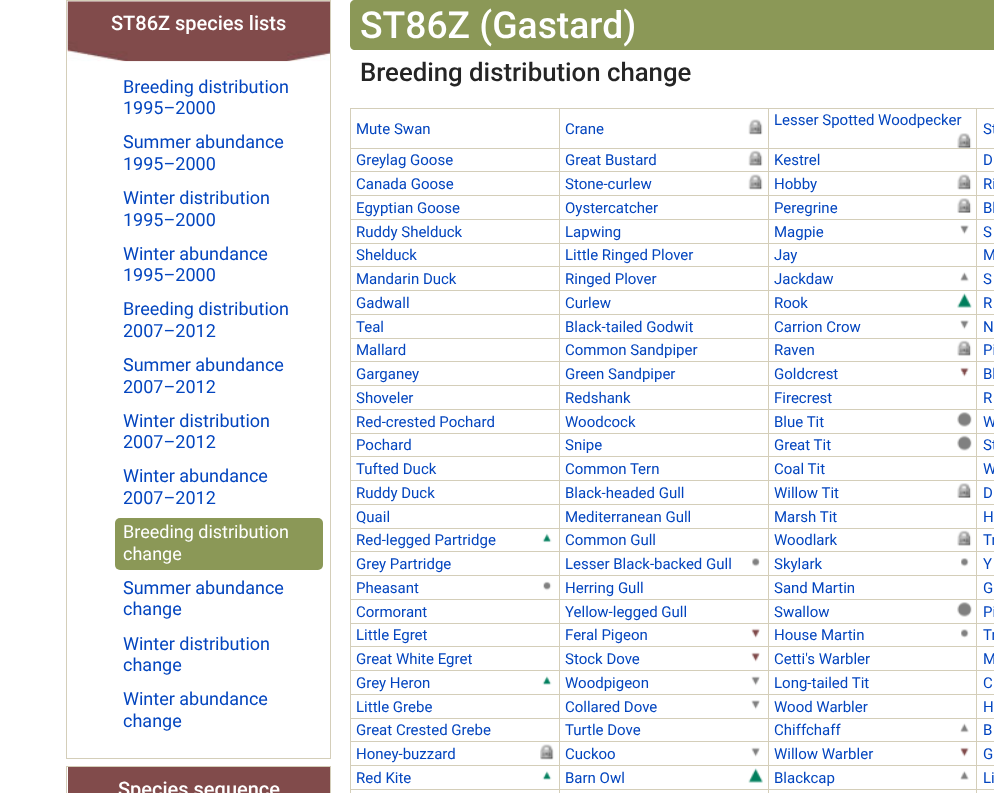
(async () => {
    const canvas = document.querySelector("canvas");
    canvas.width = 994;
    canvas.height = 793;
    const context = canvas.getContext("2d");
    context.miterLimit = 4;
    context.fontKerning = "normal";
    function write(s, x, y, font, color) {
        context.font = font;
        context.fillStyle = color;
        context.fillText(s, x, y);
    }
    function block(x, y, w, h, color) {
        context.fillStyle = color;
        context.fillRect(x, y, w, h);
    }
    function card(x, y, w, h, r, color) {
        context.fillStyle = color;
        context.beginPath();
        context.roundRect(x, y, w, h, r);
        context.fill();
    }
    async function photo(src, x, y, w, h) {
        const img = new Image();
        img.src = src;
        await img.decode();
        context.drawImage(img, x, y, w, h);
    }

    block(0, 0, 994, 793, "rgb(255, 255, 255)");
    context.strokeStyle = "rgb(212, 206, 185)";
    context.strokeRect(66.5, 0.5, 264, 758);
    await photo("media/1.png", 67, 1, 263, 61);
    write("ST86Z species lists", 111, 30, "500 20px Roboto", "rgb(255, 255, 255)");
    write("Breeding distribution", 123, 93, "18px Roboto", "rgb(3, 69, 191)");
    write("1995–2000", 123, 114, "18px Roboto", "rgb(3, 69, 191)");
    write("Summer abundance", 123, 148, "18px Roboto", "rgb(3, 69, 191)");
    write("1995–2000", 123, 170, "18px Roboto", "rgb(3, 69, 191)");
    write("Winter distribution", 123, 204, "18px Roboto", "rgb(3, 69, 191)");
    write("1995–2000", 123, 226, "18px Roboto", "rgb(3, 69, 191)");
    write("Winter abundance", 123, 260, "18px Roboto", "rgb(3, 69, 191)");
    write("1995–2000", 123, 281, "18px Roboto", "rgb(3, 69, 191)");
    write("Breeding distribution", 123, 315, "18px Roboto", "rgb(3, 69, 191)");
    write("2007–2012", 123, 337, "18px Roboto", "rgb(3, 69, 191)");
    write("Summer abundance", 123, 371, "18px Roboto", "rgb(3, 69, 191)");
    write("2007–2012", 123, 393, "18px Roboto", "rgb(3, 69, 191)");
    write("Winter distribution", 123, 427, "18px Roboto", "rgb(3, 69, 191)");
    write("2007–2012", 123, 448, "18px Roboto", "rgb(3, 69, 191)");
    write("Winter abundance", 123, 482, "18px Roboto", "rgb(3, 69, 191)");
    write("2007–2012", 123, 504, "18px Roboto", "rgb(3, 69, 191)");
    card(115, 518, 208, 52, 5, "rgb(139, 152, 87)");
    write("Breeding distribution", 123, 538, "18px Roboto", "rgb(255, 255, 255)");
    write("change", 123, 560, "18px Roboto", "rgb(255, 255, 255)");
    write("Summer abundance", 123, 594, "18px Roboto", "rgb(3, 69, 191)");
    write("change", 123, 615, "18px Roboto", "rgb(3, 69, 191)");
    write("Winter distribution", 123, 650, "18px Roboto", "rgb(3, 69, 191)");
    write("change", 123, 671, "18px Roboto", "rgb(3, 69, 191)");
    write("Winter abundance", 123, 705, "18px Roboto", "rgb(3, 69, 191)");
    write("change", 123, 727, "18px Roboto", "rgb(3, 69, 191)");
    context.strokeRect(66.5, 766.5, 264, 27);
    block(68, 767, 262, 26, "rgb(129, 75, 75)");
    write("Species sequence", 118, 796, "500 20px Roboto", "rgb(255, 255, 255)");
    context.fillStyle = "rgb(139, 152, 87)";
    context.beginPath();
    context.moveTo(355, 0);
    context.lineTo(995, 0);
    context.lineTo(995, 50);
    context.lineTo(355, 50);
    context.bezierCurveTo(352, 50, 350, 48, 350, 45);
    context.lineTo(350, 5);
    context.bezierCurveTo(350, 2, 352, 0, 355, 0);
    context.closePath();
    context.fill();
    write("ST86Z (Gastard)", 360, 38, "500 37.25px Roboto", "rgb(255, 255, 255)");
    write("Breeding distribution change", 360, 81, "500 25.75px Roboto", "rgb(37, 37, 37)");
    block(976, 108, 18, 1, "rgb(212, 206, 185)");
    block(976, 148, 18, 1, "rgb(212, 206, 185)");
    block(976, 171, 18, 1, "rgb(212, 206, 185)");
    block(976, 195, 18, 1, "rgb(212, 206, 185)");
    block(976, 219, 18, 1, "rgb(212, 206, 185)");
    block(976, 243, 18, 1, "rgb(212, 206, 185)");
    block(976, 266, 18, 1, "rgb(212, 206, 185)");
    block(976, 290, 18, 1, "rgb(212, 206, 185)");
    block(976, 314, 18, 1, "rgb(212, 206, 185)");
    block(976, 338, 18, 1, "rgb(212, 206, 185)");
    block(976, 361, 18, 1, "rgb(212, 206, 185)");
    block(976, 385, 18, 1, "rgb(212, 206, 185)");
    block(976, 409, 18, 1, "rgb(212, 206, 185)");
    block(976, 433, 18, 1, "rgb(212, 206, 185)");
    block(976, 456, 18, 1, "rgb(212, 206, 185)");
    block(976, 480, 18, 1, "rgb(212, 206, 185)");
    block(976, 504, 18, 1, "rgb(212, 206, 185)");
    block(976, 528, 18, 1, "rgb(212, 206, 185)");
    block(976, 551, 18, 1, "rgb(212, 206, 185)");
    block(976, 575, 18, 1, "rgb(212, 206, 185)");
    block(976, 599, 18, 1, "rgb(212, 206, 185)");
    block(976, 623, 18, 1, "rgb(212, 206, 185)");
    block(976, 646, 18, 1, "rgb(212, 206, 185)");
    block(976, 670, 18, 1, "rgb(212, 206, 185)");
    block(976, 694, 18, 1, "rgb(212, 206, 185)");
    block(976, 718, 18, 1, "rgb(212, 206, 185)");
    block(976, 741, 18, 1, "rgb(212, 206, 185)");
    block(976, 765, 18, 1, "rgb(212, 206, 185)");
    block(976, 789, 18, 1, "rgb(212, 206, 185)");
    block(976, 789, 1, 4, "rgb(212, 206, 185)");
    block(768, 789, 210, 1, "rgb(212, 206, 185)");
    block(976, 765, 1, 25, "rgb(212, 206, 185)");
    block(768, 765, 210, 1, "rgb(212, 206, 185)");
    block(976, 741, 1, 25, "rgb(212, 206, 185)");
    block(768, 741, 210, 1, "rgb(212, 206, 185)");
    block(976, 718, 1, 25, "rgb(212, 206, 185)");
    block(768, 718, 210, 1, "rgb(212, 206, 185)");
    block(976, 694, 1, 25, "rgb(212, 206, 185)");
    block(768, 694, 210, 1, "rgb(212, 206, 185)");
    block(976, 670, 1, 25, "rgb(212, 206, 185)");
    block(768, 670, 210, 1, "rgb(212, 206, 185)");
    block(976, 646, 1, 25, "rgb(212, 206, 185)");
    block(768, 646, 210, 1, "rgb(212, 206, 185)");
    block(976, 623, 1, 25, "rgb(212, 206, 185)");
    block(768, 623, 210, 1, "rgb(212, 206, 185)");
    block(976, 599, 1, 25, "rgb(212, 206, 185)");
    block(768, 599, 210, 1, "rgb(212, 206, 185)");
    block(976, 575, 1, 25, "rgb(212, 206, 185)");
    block(768, 575, 210, 1, "rgb(212, 206, 185)");
    block(976, 551, 1, 25, "rgb(212, 206, 185)");
    block(768, 551, 210, 1, "rgb(212, 206, 185)");
    block(976, 528, 1, 25, "rgb(212, 206, 185)");
    block(768, 528, 210, 1, "rgb(212, 206, 185)");
    block(976, 504, 1, 25, "rgb(212, 206, 185)");
    block(768, 504, 210, 1, "rgb(212, 206, 185)");
    block(976, 480, 1, 25, "rgb(212, 206, 185)");
    block(768, 480, 210, 1, "rgb(212, 206, 185)");
    block(976, 456, 1, 25, "rgb(212, 206, 185)");
    block(768, 456, 210, 1, "rgb(212, 206, 185)");
    block(976, 433, 1, 25, "rgb(212, 206, 185)");
    block(768, 433, 210, 1, "rgb(212, 206, 185)");
    block(976, 409, 1, 25, "rgb(212, 206, 185)");
    block(768, 409, 210, 1, "rgb(212, 206, 185)");
    block(976, 385, 1, 25, "rgb(212, 206, 185)");
    block(768, 385, 210, 1, "rgb(212, 206, 185)");
    block(976, 361, 1, 25, "rgb(212, 206, 185)");
    block(768, 361, 210, 1, "rgb(212, 206, 185)");
    block(976, 338, 1, 25, "rgb(212, 206, 185)");
    block(768, 338, 210, 1, "rgb(212, 206, 185)");
    block(976, 314, 1, 25, "rgb(212, 206, 185)");
    block(768, 314, 210, 1, "rgb(212, 206, 185)");
    block(976, 290, 1, 25, "rgb(212, 206, 185)");
    block(768, 290, 210, 1, "rgb(212, 206, 185)");
    block(976, 266, 1, 25, "rgb(212, 206, 185)");
    block(768, 266, 210, 1, "rgb(212, 206, 185)");
    block(976, 243, 1, 25, "rgb(212, 206, 185)");
    block(768, 243, 210, 1, "rgb(212, 206, 185)");
    block(976, 219, 1, 25, "rgb(212, 206, 185)");
    block(768, 219, 210, 1, "rgb(212, 206, 185)");
    block(976, 195, 1, 25, "rgb(212, 206, 185)");
    block(768, 195, 210, 1, "rgb(212, 206, 185)");
    block(976, 171, 1, 25, "rgb(212, 206, 185)");
    block(768, 171, 210, 1, "rgb(212, 206, 185)");
    block(976, 148, 1, 25, "rgb(212, 206, 185)");
    block(768, 148, 210, 1, "rgb(212, 206, 185)");
    block(976, 108, 1, 41, "rgb(212, 206, 185)");
    block(768, 108, 210, 1, "rgb(212, 206, 185)");
    block(768, 789, 1, 4, "rgb(212, 206, 185)");
    block(559, 789, 210, 1, "rgb(212, 206, 185)");
    block(768, 765, 1, 25, "rgb(212, 206, 185)");
    block(559, 765, 210, 1, "rgb(212, 206, 185)");
    block(768, 741, 1, 25, "rgb(212, 206, 185)");
    block(559, 741, 210, 1, "rgb(212, 206, 185)");
    block(768, 718, 1, 25, "rgb(212, 206, 185)");
    block(559, 718, 210, 1, "rgb(212, 206, 185)");
    block(768, 694, 1, 25, "rgb(212, 206, 185)");
    block(559, 694, 210, 1, "rgb(212, 206, 185)");
    block(768, 670, 1, 25, "rgb(212, 206, 185)");
    block(559, 670, 210, 1, "rgb(212, 206, 185)");
    block(768, 646, 1, 25, "rgb(212, 206, 185)");
    block(559, 646, 210, 1, "rgb(212, 206, 185)");
    block(768, 623, 1, 25, "rgb(212, 206, 185)");
    block(559, 623, 210, 1, "rgb(212, 206, 185)");
    block(768, 599, 1, 25, "rgb(212, 206, 185)");
    block(559, 599, 210, 1, "rgb(212, 206, 185)");
    block(768, 575, 1, 25, "rgb(212, 206, 185)");
    block(559, 575, 210, 1, "rgb(212, 206, 185)");
    block(768, 551, 1, 25, "rgb(212, 206, 185)");
    block(559, 551, 210, 1, "rgb(212, 206, 185)");
    block(768, 528, 1, 25, "rgb(212, 206, 185)");
    block(559, 528, 210, 1, "rgb(212, 206, 185)");
    block(768, 504, 1, 25, "rgb(212, 206, 185)");
    block(559, 504, 210, 1, "rgb(212, 206, 185)");
    block(768, 480, 1, 25, "rgb(212, 206, 185)");
    block(559, 480, 210, 1, "rgb(212, 206, 185)");
    block(768, 456, 1, 25, "rgb(212, 206, 185)");
    block(559, 456, 210, 1, "rgb(212, 206, 185)");
    block(768, 433, 1, 25, "rgb(212, 206, 185)");
    block(559, 433, 210, 1, "rgb(212, 206, 185)");
    block(768, 409, 1, 25, "rgb(212, 206, 185)");
    block(559, 409, 210, 1, "rgb(212, 206, 185)");
    block(768, 385, 1, 25, "rgb(212, 206, 185)");
    block(559, 385, 210, 1, "rgb(212, 206, 185)");
    block(768, 361, 1, 25, "rgb(212, 206, 185)");
    block(559, 361, 210, 1, "rgb(212, 206, 185)");
    block(768, 338, 1, 25, "rgb(212, 206, 185)");
    block(559, 338, 210, 1, "rgb(212, 206, 185)");
    block(768, 314, 1, 25, "rgb(212, 206, 185)");
    block(559, 314, 210, 1, "rgb(212, 206, 185)");
    block(768, 290, 1, 25, "rgb(212, 206, 185)");
    block(559, 290, 210, 1, "rgb(212, 206, 185)");
    block(768, 266, 1, 25, "rgb(212, 206, 185)");
    block(559, 266, 210, 1, "rgb(212, 206, 185)");
    block(768, 243, 1, 25, "rgb(212, 206, 185)");
    block(559, 243, 210, 1, "rgb(212, 206, 185)");
    block(768, 219, 1, 25, "rgb(212, 206, 185)");
    block(559, 219, 210, 1, "rgb(212, 206, 185)");
    block(768, 195, 1, 25, "rgb(212, 206, 185)");
    block(559, 195, 210, 1, "rgb(212, 206, 185)");
    block(768, 171, 1, 25, "rgb(212, 206, 185)");
    block(559, 171, 210, 1, "rgb(212, 206, 185)");
    block(768, 148, 1, 25, "rgb(212, 206, 185)");
    block(559, 148, 210, 1, "rgb(212, 206, 185)");
    block(768, 108, 1, 41, "rgb(212, 206, 185)");
    block(559, 108, 210, 1, "rgb(212, 206, 185)");
    block(559, 789, 1, 4, "rgb(212, 206, 185)");
    block(350, 789, 210, 1, "rgb(212, 206, 185)");
    block(559, 765, 1, 25, "rgb(212, 206, 185)");
    block(350, 765, 210, 1, "rgb(212, 206, 185)");
    block(559, 741, 1, 25, "rgb(212, 206, 185)");
    block(350, 741, 210, 1, "rgb(212, 206, 185)");
    block(559, 718, 1, 25, "rgb(212, 206, 185)");
    block(350, 718, 210, 1, "rgb(212, 206, 185)");
    block(559, 694, 1, 25, "rgb(212, 206, 185)");
    block(350, 694, 210, 1, "rgb(212, 206, 185)");
    block(559, 670, 1, 25, "rgb(212, 206, 185)");
    block(350, 670, 210, 1, "rgb(212, 206, 185)");
    block(559, 646, 1, 25, "rgb(212, 206, 185)");
    block(350, 646, 210, 1, "rgb(212, 206, 185)");
    block(559, 623, 1, 25, "rgb(212, 206, 185)");
    block(350, 623, 210, 1, "rgb(212, 206, 185)");
    block(559, 599, 1, 25, "rgb(212, 206, 185)");
    block(350, 599, 210, 1, "rgb(212, 206, 185)");
    block(559, 575, 1, 25, "rgb(212, 206, 185)");
    block(350, 575, 210, 1, "rgb(212, 206, 185)");
    block(559, 551, 1, 25, "rgb(212, 206, 185)");
    block(350, 551, 210, 1, "rgb(212, 206, 185)");
    block(559, 528, 1, 25, "rgb(212, 206, 185)");
    block(350, 528, 210, 1, "rgb(212, 206, 185)");
    block(559, 504, 1, 25, "rgb(212, 206, 185)");
    block(350, 504, 210, 1, "rgb(212, 206, 185)");
    block(559, 480, 1, 25, "rgb(212, 206, 185)");
    block(350, 480, 210, 1, "rgb(212, 206, 185)");
    block(559, 456, 1, 25, "rgb(212, 206, 185)");
    block(350, 456, 210, 1, "rgb(212, 206, 185)");
    block(559, 433, 1, 25, "rgb(212, 206, 185)");
    block(350, 433, 210, 1, "rgb(212, 206, 185)");
    block(559, 409, 1, 25, "rgb(212, 206, 185)");
    block(350, 409, 210, 1, "rgb(212, 206, 185)");
    block(559, 385, 1, 25, "rgb(212, 206, 185)");
    block(350, 385, 210, 1, "rgb(212, 206, 185)");
    block(559, 361, 1, 25, "rgb(212, 206, 185)");
    block(350, 361, 210, 1, "rgb(212, 206, 185)");
    block(559, 338, 1, 25, "rgb(212, 206, 185)");
    block(350, 338, 210, 1, "rgb(212, 206, 185)");
    block(559, 314, 1, 25, "rgb(212, 206, 185)");
    block(350, 314, 210, 1, "rgb(212, 206, 185)");
    block(559, 290, 1, 25, "rgb(212, 206, 185)");
    block(350, 290, 210, 1, "rgb(212, 206, 185)");
    block(559, 266, 1, 25, "rgb(212, 206, 185)");
    block(350, 266, 210, 1, "rgb(212, 206, 185)");
    block(559, 243, 1, 25, "rgb(212, 206, 185)");
    block(350, 243, 210, 1, "rgb(212, 206, 185)");
    block(559, 219, 1, 25, "rgb(212, 206, 185)");
    block(350, 219, 210, 1, "rgb(212, 206, 185)");
    block(559, 195, 1, 25, "rgb(212, 206, 185)");
    block(350, 195, 210, 1, "rgb(212, 206, 185)");
    block(559, 171, 1, 25, "rgb(212, 206, 185)");
    block(350, 171, 210, 1, "rgb(212, 206, 185)");
    block(559, 148, 1, 25, "rgb(212, 206, 185)");
    block(350, 148, 210, 1, "rgb(212, 206, 185)");
    block(559, 108, 1, 41, "rgb(212, 206, 185)");
    block(350, 108, 210, 1, "rgb(212, 206, 185)");
    block(350, 789, 1, 4, "rgb(212, 206, 185)");
    block(350, 765, 1, 25, "rgb(212, 206, 185)");
    block(350, 741, 1, 25, "rgb(212, 206, 185)");
    block(350, 718, 1, 25, "rgb(212, 206, 185)");
    block(350, 694, 1, 25, "rgb(212, 206, 185)");
    block(350, 670, 1, 25, "rgb(212, 206, 185)");
    block(350, 646, 1, 25, "rgb(212, 206, 185)");
    block(350, 623, 1, 25, "rgb(212, 206, 185)");
    block(350, 599, 1, 25, "rgb(212, 206, 185)");
    block(350, 575, 1, 25, "rgb(212, 206, 185)");
    block(350, 551, 1, 25, "rgb(212, 206, 185)");
    block(350, 528, 1, 25, "rgb(212, 206, 185)");
    block(350, 504, 1, 25, "rgb(212, 206, 185)");
    block(350, 480, 1, 25, "rgb(212, 206, 185)");
    block(350, 456, 1, 25, "rgb(212, 206, 185)");
    block(350, 433, 1, 25, "rgb(212, 206, 185)");
    block(350, 409, 1, 25, "rgb(212, 206, 185)");
    block(350, 385, 1, 25, "rgb(212, 206, 185)");
    block(350, 361, 1, 25, "rgb(212, 206, 185)");
    block(350, 338, 1, 25, "rgb(212, 206, 185)");
    block(350, 314, 1, 25, "rgb(212, 206, 185)");
    block(350, 290, 1, 25, "rgb(212, 206, 185)");
    block(350, 266, 1, 25, "rgb(212, 206, 185)");
    block(350, 243, 1, 25, "rgb(212, 206, 185)");
    block(350, 219, 1, 25, "rgb(212, 206, 185)");
    block(350, 195, 1, 25, "rgb(212, 206, 185)");
    block(350, 171, 1, 25, "rgb(212, 206, 185)");
    block(350, 148, 1, 25, "rgb(212, 206, 185)");
    block(350, 108, 1, 41, "rgb(212, 206, 185)");
    write("Mute Swan", 356, 134, "15px Roboto", "rgb(3, 69, 191)");
    write("Crane", 565, 134, "15px Roboto", "rgb(3, 69, 191)");
    await photo("media/2.png", 748, 119, 15, 16);
    write("Lesser Spotted Woodpecker", 774, 125, "15px Roboto", "rgb(3, 69, 191)");
    await photo("media/3.png", 957, 133, 15, 15);
    write("St", 983, 134, "15px Roboto", "rgb(3, 69, 191)");
    write("Greylag Goose", 356, 165, "15px Roboto", "rgb(3, 69, 191)");
    write("Great Bustard", 565, 165, "15px Roboto", "rgb(3, 69, 191)");
    await photo("media/4.png", 748, 150, 15, 16);
    write("Kestrel", 774, 165, "15px Roboto", "rgb(3, 69, 191)");
    write("D", 983, 165, "15px Roboto", "rgb(3, 69, 191)");
    write("Canada Goose", 356, 189, "15px Roboto", "rgb(3, 69, 191)");
    write("Stone-curlew", 565, 189, "15px Roboto", "rgb(3, 69, 191)");
    await photo("media/2.png", 748, 174, 15, 16);
    write("Hobby", 774, 189, "15px Roboto", "rgb(3, 69, 191)");
    await photo("media/5.png", 957, 174, 15, 16);
    write("Ri", 983, 189, "15px Roboto", "rgb(3, 69, 191)");
    write("Egyptian Goose", 356, 213, "15px Roboto", "rgb(3, 69, 191)");
    write("Oystercatcher", 565, 213, "15px Roboto", "rgb(3, 69, 191)");
    write("Peregrine", 774, 213, "15px Roboto", "rgb(3, 69, 191)");
    await photo("media/3.png", 957, 198, 15, 15);
    write("Bl", 983, 213, "15px Roboto", "rgb(3, 69, 191)");
    write("Ruddy Shelduck", 356, 237, "15px Roboto", "rgb(3, 69, 191)");
    write("Lapwing", 565, 237, "15px Roboto", "rgb(3, 69, 191)");
    write("Magpie", 774, 237, "15px Roboto", "rgb(3, 69, 191)");
    await photo("media/6.png", 960, 225, 9, 10);
    write("S", 983, 237, "15px Roboto", "rgb(3, 69, 191)");
    write("Shelduck", 356, 260, "15px Roboto", "rgb(3, 69, 191)");
    write("Little Ringed Plover", 565, 260, "15px Roboto", "rgb(3, 69, 191)");
    write("Jay", 774, 260, "15px Roboto", "rgb(3, 69, 191)");
    write("M", 983, 260, "15px Roboto", "rgb(3, 69, 191)");
    write("Mandarin Duck", 356, 284, "15px Roboto", "rgb(3, 69, 191)");
    write("Ringed Plover", 565, 284, "15px Roboto", "rgb(3, 69, 191)");
    write("Jackdaw", 774, 284, "15px Roboto", "rgb(3, 69, 191)");
    await photo("media/7.png", 960, 272, 9, 10);
    write("S", 983, 284, "15px Roboto", "rgb(3, 69, 191)");
    write("Gadwall", 356, 308, "15px Roboto", "rgb(3, 69, 191)");
    write("Curlew", 565, 308, "15px Roboto", "rgb(3, 69, 191)");
    write("Rook", 774, 308, "15px Roboto", "rgb(3, 69, 191)");
    await photo("media/8.png", 957, 293, 15, 15);
    write("R", 983, 308, "15px Roboto", "rgb(3, 69, 191)");
    write("Teal", 356, 332, "15px Roboto", "rgb(3, 69, 191)");
    write("Black-tailed Godwit", 565, 332, "15px Roboto", "rgb(3, 69, 191)");
    write("Carrion Crow", 774, 332, "15px Roboto", "rgb(3, 69, 191)");
    await photo("media/6.png", 960, 320, 9, 10);
    write("N", 983, 332, "15px Roboto", "rgb(3, 69, 191)");
    write("Mallard", 356, 355, "15px Roboto", "rgb(3, 69, 191)");
    write("Common Sandpiper", 565, 355, "15px Roboto", "rgb(3, 69, 191)");
    write("Raven", 774, 355, "15px Roboto", "rgb(3, 69, 191)");
    await photo("media/9.png", 957, 340, 15, 16);
    write("Pi", 983, 355, "15px Roboto", "rgb(3, 69, 191)");
    write("Garganey", 356, 379, "15px Roboto", "rgb(3, 69, 191)");
    write("Green Sandpiper", 565, 379, "15px Roboto", "rgb(3, 69, 191)");
    write("Goldcrest", 774, 379, "15px Roboto", "rgb(3, 69, 191)");
    await photo("media/10.png", 960, 367, 9, 10);
    write("Bl", 983, 379, "15px Roboto", "rgb(3, 69, 191)");
    write("Shoveler", 356, 403, "15px Roboto", "rgb(3, 69, 191)");
    write("Redshank", 565, 403, "15px Roboto", "rgb(3, 69, 191)");
    write("Firecrest", 774, 403, "15px Roboto", "rgb(3, 69, 191)");
    write("R", 983, 403, "15px Roboto", "rgb(3, 69, 191)");
    write("Red-crested Pochard", 356, 427, "15px Roboto", "rgb(3, 69, 191)");
    write("Woodcock", 565, 427, "15px Roboto", "rgb(3, 69, 191)");
    write("Blue Tit", 774, 427, "15px Roboto", "rgb(3, 69, 191)");
    await photo("media/11.png", 957, 412, 15, 15);
    write("W", 983, 427, "15px Roboto", "rgb(3, 69, 191)");
    write("Pochard", 356, 450, "15px Roboto", "rgb(3, 69, 191)");
    write("Snipe", 565, 450, "15px Roboto", "rgb(3, 69, 191)");
    write("Great Tit", 774, 450, "15px Roboto", "rgb(3, 69, 191)");
    await photo("media/12.png", 957, 435, 15, 16);
    write("St", 983, 450, "15px Roboto", "rgb(3, 69, 191)");
    write("Tufted Duck", 356, 474, "15px Roboto", "rgb(3, 69, 191)");
    write("Common Tern", 565, 474, "15px Roboto", "rgb(3, 69, 191)");
    write("Coal Tit", 774, 474, "15px Roboto", "rgb(3, 69, 191)");
    write("W", 983, 474, "15px Roboto", "rgb(3, 69, 191)");
    write("Ruddy Duck", 356, 498, "15px Roboto", "rgb(3, 69, 191)");
    write("Black-headed Gull", 565, 498, "15px Roboto", "rgb(3, 69, 191)");
    write("Willow Tit", 774, 498, "15px Roboto", "rgb(3, 69, 191)");
    await photo("media/3.png", 957, 483, 15, 15);
    write("D", 983, 498, "15px Roboto", "rgb(3, 69, 191)");
    write("Quail", 356, 522, "15px Roboto", "rgb(3, 69, 191)");
    write("Mediterranean Gull", 565, 522, "15px Roboto", "rgb(3, 69, 191)");
    write("Marsh Tit", 774, 522, "15px Roboto", "rgb(3, 69, 191)");
    write("H", 983, 522, "15px Roboto", "rgb(3, 69, 191)");
    write("Red-legged Partridge", 356, 545, "15px Roboto", "rgb(3, 69, 191)");
    await photo("media/13.png", 542, 533, 10, 10);
    write("Common Gull", 565, 545, "15px Roboto", "rgb(3, 69, 191)");
    write("Woodlark", 774, 545, "15px Roboto", "rgb(3, 69, 191)");
    await photo("media/9.png", 957, 530, 15, 16);
    write("Tr", 983, 545, "15px Roboto", "rgb(3, 69, 191)");
    write("Grey Partridge", 356, 569, "15px Roboto", "rgb(3, 69, 191)");
    write("Lesser Black-backed Gull", 565, 569, "15px Roboto", "rgb(3, 69, 191)");
    await photo("media/14.png", 752, 558, 8, 9);
    write("Skylark", 774, 569, "15px Roboto", "rgb(3, 69, 191)");
    await photo("media/15.png", 961, 558, 8, 9);
    write("Y", 983, 569, "15px Roboto", "rgb(3, 69, 191)");
    write("Pheasant", 356, 593, "15px Roboto", "rgb(3, 69, 191)");
    await photo("media/16.png", 543, 581, 9, 10);
    write("Herring Gull", 565, 593, "15px Roboto", "rgb(3, 69, 191)");
    write("Sand Martin", 774, 593, "15px Roboto", "rgb(3, 69, 191)");
    write("G", 983, 593, "15px Roboto", "rgb(3, 69, 191)");
    write("Cormorant", 356, 617, "15px Roboto", "rgb(3, 69, 191)");
    write("Yellow-legged Gull", 565, 617, "15px Roboto", "rgb(3, 69, 191)");
    write("Swallow", 774, 617, "15px Roboto", "rgb(3, 69, 191)");
    await photo("media/11.png", 957, 602, 15, 15);
    write("Pi", 983, 617, "15px Roboto", "rgb(3, 69, 191)");
    write("Little Egret", 356, 640, "15px Roboto", "rgb(3, 69, 191)");
    write("Feral Pigeon", 565, 640, "15px Roboto", "rgb(3, 69, 191)");
    await photo("media/17.png", 751, 628, 9, 10);
    write("House Martin", 774, 640, "15px Roboto", "rgb(3, 69, 191)");
    await photo("media/18.png", 961, 629, 8, 9);
    write("Tr", 983, 640, "15px Roboto", "rgb(3, 69, 191)");
    write("Great White Egret", 356, 664, "15px Roboto", "rgb(3, 69, 191)");
    write("Stock Dove", 565, 664, "15px Roboto", "rgb(3, 69, 191)");
    await photo("media/19.png", 751, 652, 9, 10);
    write("Cetti's Warbler", 774, 664, "15px Roboto", "rgb(3, 69, 191)");
    write("M", 983, 664, "15px Roboto", "rgb(3, 69, 191)");
    write("Grey Heron", 356, 688, "15px Roboto", "rgb(3, 69, 191)");
    await photo("media/20.png", 542, 676, 10, 9);
    write("Woodpigeon", 565, 688, "15px Roboto", "rgb(3, 69, 191)");
    await photo("media/21.png", 751, 676, 9, 10);
    write("Long-tailed Tit", 774, 688, "15px Roboto", "rgb(3, 69, 191)");
    write("C", 983, 688, "15px Roboto", "rgb(3, 69, 191)");
    write("Little Grebe", 356, 712, "15px Roboto", "rgb(3, 69, 191)");
    write("Collared Dove", 565, 712, "15px Roboto", "rgb(3, 69, 191)");
    await photo("media/22.png", 751, 700, 9, 10);
    write("Wood Warbler", 774, 712, "15px Roboto", "rgb(3, 69, 191)");
    write("H", 983, 712, "15px Roboto", "rgb(3, 69, 191)");
    write("Great Crested Grebe", 356, 735, "15px Roboto", "rgb(3, 69, 191)");
    write("Turtle Dove", 565, 735, "15px Roboto", "rgb(3, 69, 191)");
    write("Chiffchaff", 774, 735, "15px Roboto", "rgb(3, 69, 191)");
    await photo("media/23.png", 960, 723, 9, 10);
    write("B", 983, 735, "15px Roboto", "rgb(3, 69, 191)");
    write("Honey-buzzard", 356, 759, "15px Roboto", "rgb(3, 69, 191)");
    await photo("media/24.png", 540, 744, 14, 16);
    write("Cuckoo", 565, 759, "15px Roboto", "rgb(3, 69, 191)");
    await photo("media/25.png", 751, 747, 9, 10);
    write("Willow Warbler", 774, 759, "15px Roboto", "rgb(3, 69, 191)");
    await photo("media/26.png", 960, 747, 9, 10);
    write("G", 983, 759, "15px Roboto", "rgb(3, 69, 191)");
    write("Red Kite", 356, 783, "15px Roboto", "rgb(3, 69, 191)");
    await photo("media/20.png", 542, 771, 10, 9);
    write("Barn Owl", 565, 783, "15px Roboto", "rgb(3, 69, 191)");
    await photo("media/27.png", 748, 768, 15, 15);
    write("Blackcap", 774, 783, "15px Roboto", "rgb(3, 69, 191)");
    await photo("media/28.png", 960, 771, 9, 9);
    write("Li", 983, 783, "15px Roboto", "rgb(3, 69, 191)");
})();
